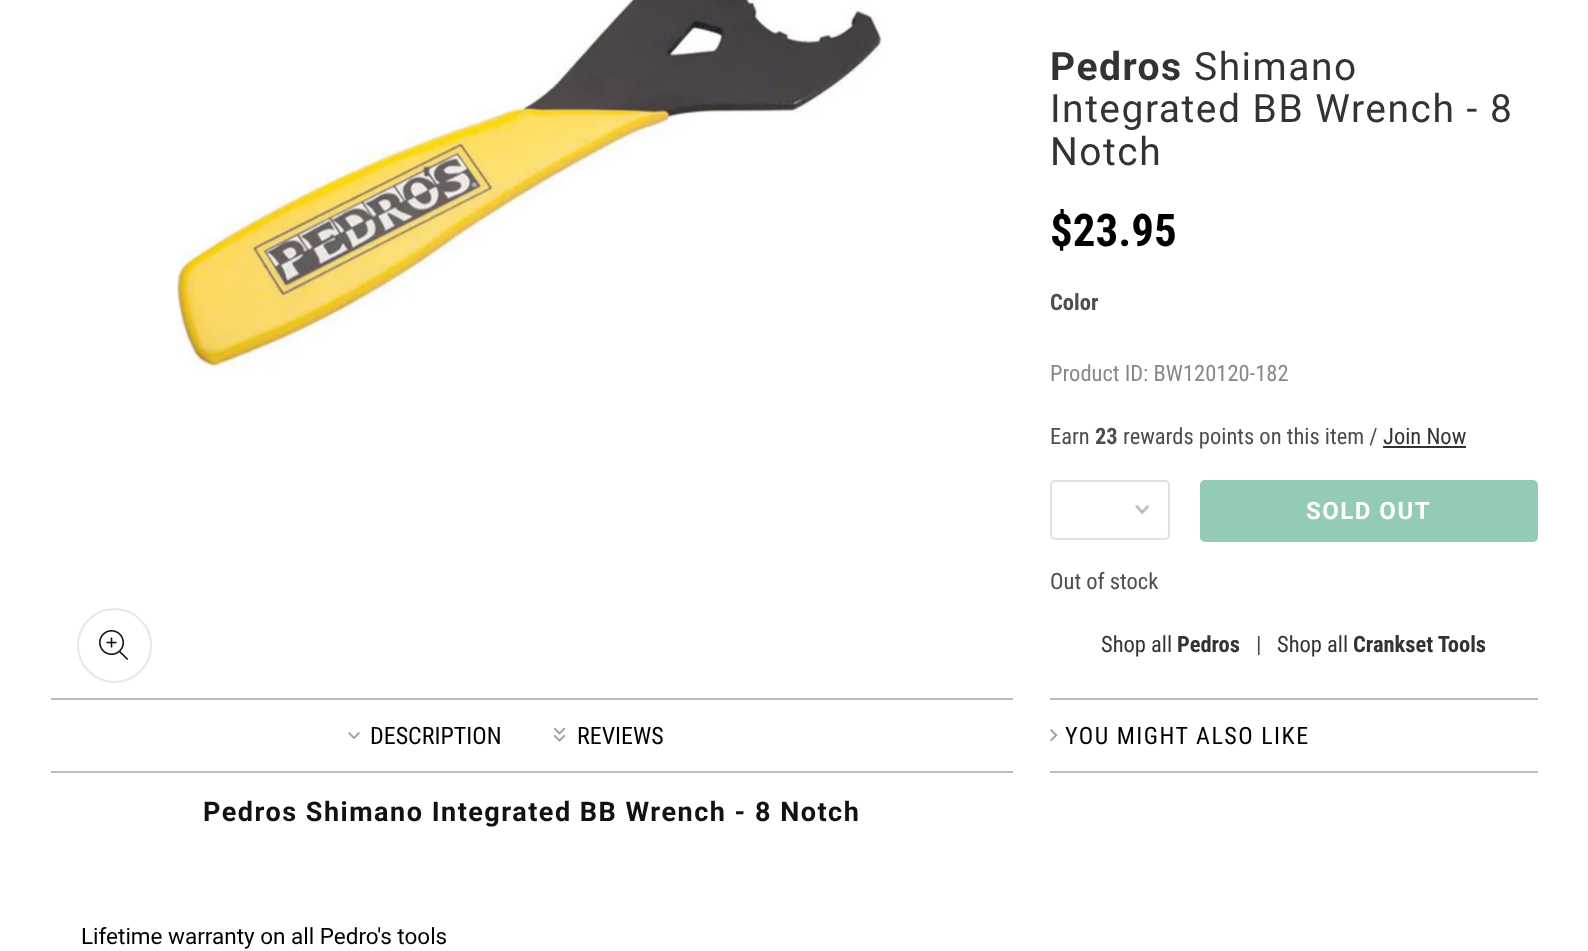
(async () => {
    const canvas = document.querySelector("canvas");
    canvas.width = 1588;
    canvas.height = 951;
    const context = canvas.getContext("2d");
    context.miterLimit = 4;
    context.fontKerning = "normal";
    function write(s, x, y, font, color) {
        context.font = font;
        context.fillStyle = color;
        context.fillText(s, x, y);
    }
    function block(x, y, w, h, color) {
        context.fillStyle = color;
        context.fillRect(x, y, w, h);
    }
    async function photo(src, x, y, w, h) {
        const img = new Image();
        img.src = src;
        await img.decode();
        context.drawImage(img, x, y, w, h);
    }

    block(0, 0, 1588, 951, "rgb(255, 255, 255)");
    await photo("media/1.png", 176, 0, 707, 372);
    context.beginPath();
    context.arc(114.5, 645.5, 36.5, 0, Math.PI * 2);
    context.strokeStyle = "rgb(231, 231, 231)";
    context.lineWidth = 2;
    context.stroke();
    await photo("media/2.png", 99, 630, 29, 30);
    context.letterSpacing = "1.5px";
    write("Pedros", 1050, 80, "bold 39px Roboto", "rgb(51, 51, 51)");
    write("Shimano", 1194, 80, "39px Roboto", "rgb(51, 51, 51)");
    write("Integrated BB Wrench - 8", 1050, 122, "39px Roboto", "rgb(51, 51, 51)");
    write("Notch", 1050, 165, "39px Roboto", "rgb(51, 51, 51)");
    context.letterSpacing = "0px";
    write("$23.95", 1050, 246, "bold 45px Roboto Condensed", "rgb(0, 0, 0)");
    write("Color", 1050, 310, "bold 22.5px Roboto Condensed", "rgb(77, 77, 77)");
    write("Product ID: BW120120-182", 1050, 381, "22.5px Roboto Condensed", "rgb(136, 136, 136)");
    write("Earn", 1050, 444, "22.5px Roboto Condensed", "rgb(77, 77, 77)");
    write("23", 1095, 444, "bold 22.5px Roboto Condensed", "rgb(77, 77, 77)");
    write("rewards points on this item /", 1123, 444, "22.5px Roboto Condensed", "rgb(77, 77, 77)");
    write("Join Now", 1383, 444, "22.5px Roboto Condensed", "rgb(51, 51, 51)");
    block(1383, 446, 83, 2, "rgb(51, 51, 51)");
    await photo("media/3.png", 1135, 504, 15, 11);
    context.beginPath();
    context.roundRect(1051, 481, 118, 58, 4);
    context.strokeStyle = "rgb(223, 224, 225)";
    context.stroke();
    context.fillStyle = "rgb(148, 203, 179)";
    context.beginPath();
    context.roundRect(1201, 481, 336, 60, 4);
    context.fill();
    context.strokeStyle = "rgb(148, 203, 179)";
    context.stroke();
    context.letterSpacing = "1.5px";
    write("SOLD OUT", 1306, 519, "bold 24px Roboto", "rgb(255, 255, 255)");
    context.letterSpacing = "0px";
    write("Out of stock", 1050, 589, "22.5px Roboto Condensed", "rgb(77, 77, 77)");
    write("Shop all", 1101, 652, "22.5px Roboto Condensed", "rgb(51, 51, 51)");
    write("Pedros", 1177, 652, "bold 22.5px Roboto Condensed", "rgb(51, 51, 51)");
    write("|", 1256, 652, "22.5px Roboto Condensed", "rgb(77, 77, 77)");
    write("Shop all", 1277, 652, "22.5px Roboto Condensed", "rgb(51, 51, 51)");
    write("Crankset Tools", 1353, 652, "bold 22.5px Roboto Condensed", "rgb(51, 51, 51)");
    block(51, 698, 962, 2, "rgb(189, 189, 189)");
    block(51, 771, 962, 2, "rgb(189, 189, 189)");
    await photo("media/4.png", 348, 732, 12, 7);
    write("DESCRIPTION", 370, 744, "24px Roboto Condensed", "rgb(0, 0, 0)");
    await photo("media/5.png", 554, 728, 12, 14);
    write("REVIEWS", 577, 744, "24px Roboto Condensed", "rgb(0, 0, 0)");
    context.letterSpacing = "1.5px";
    write("Pedros Shimano Integrated BB Wrench - 8 Notch", 203, 821, "bold 27px Roboto", "rgb(18, 18, 18)");
    context.letterSpacing = "0px";
    write("Lifetime warranty on all Pedro's tools", 81, 944, "22.5px Roboto", "rgb(0, 0, 0)");
    block(1050, 698, 488, 2, "rgb(189, 189, 189)");
    block(1050, 771, 488, 2, "rgb(189, 189, 189)");
    await photo("media/6.png", 1050, 729, 8, 12);
    context.letterSpacing = "1.5px";
    write("YOU MIGHT ALSO LIKE", 1065, 744, "24px Roboto Condensed", "rgb(0, 0, 0)");
})();
